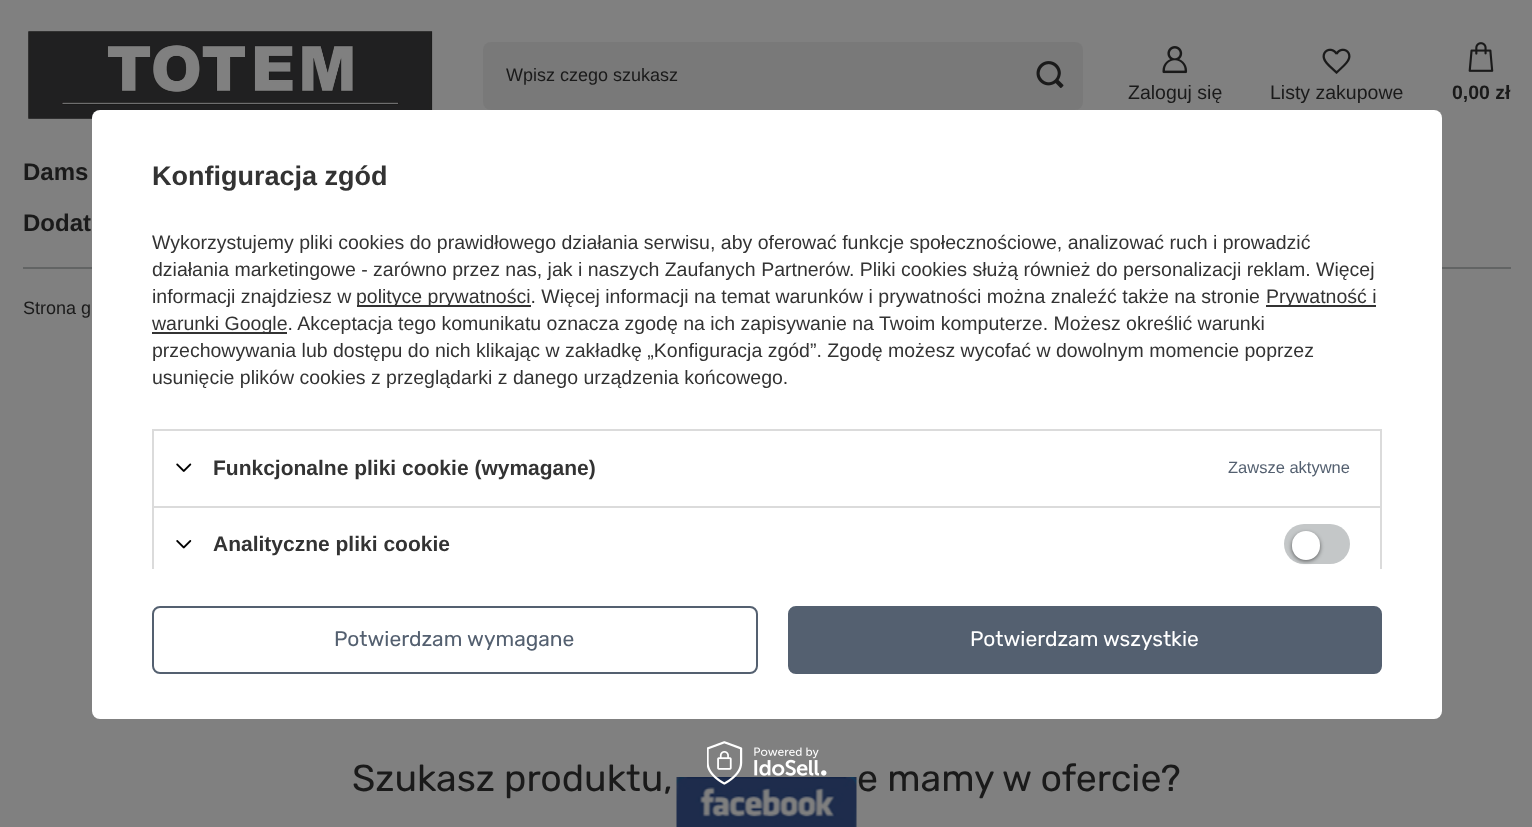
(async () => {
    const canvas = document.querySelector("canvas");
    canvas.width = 1532;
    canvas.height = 827;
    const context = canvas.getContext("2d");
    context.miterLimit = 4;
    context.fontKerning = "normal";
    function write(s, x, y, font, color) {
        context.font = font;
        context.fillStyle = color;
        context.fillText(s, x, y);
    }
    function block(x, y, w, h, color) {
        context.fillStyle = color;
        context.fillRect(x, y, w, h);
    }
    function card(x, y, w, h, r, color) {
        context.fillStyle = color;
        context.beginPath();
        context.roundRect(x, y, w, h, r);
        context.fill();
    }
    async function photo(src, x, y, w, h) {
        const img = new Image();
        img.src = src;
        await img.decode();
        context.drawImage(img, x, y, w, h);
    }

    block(0, 0, 1532, 827, "rgb(128, 128, 128)");
    await photo("media/1.png", 28, 31, 405, 88);
    card(483, 42, 600, 68, 8, "rgb(121, 121, 121)");
    write("Wpisz czego szukasz", 506, 81, "18px Liberation Sans", "rgb(26, 26, 26)");
    await photo("media/2.png", 1036, 61, 28, 27);
    await photo("media/3.png", 1162, 46, 26, 28);
    write("Zaloguj się", 1128, 99, "19.5px Liberation Sans", "rgb(26, 26, 26)");
    await photo("media/4.png", 1322, 48, 29, 26);
    write("Listy zakupowe", 1270, 99, "19.5px Liberation Sans", "rgb(26, 26, 26)");
    await photo("media/5.png", 1468, 42, 26, 30);
    write("0,00 zł", 1452, 99, "bold 19.5px Liberation Sans", "rgb(26, 26, 26)");
    block(23, 267, 1488, 2, "rgb(98, 100, 100)");
    write("Dams", 23, 180, "bold 24px Liberation Sans", "rgb(26, 26, 26)");
    write("Dodat", 23, 231, "bold 24px Liberation Sans", "rgb(26, 26, 26)");
    write("Strona g", 23, 314, "18px Liberation Sans", "rgb(26, 26, 26)");
    write("Szukasz produktu,", 352, 791, "37.5px Rubik", "rgb(26, 26, 26)");
    write("e mamy w ofercie?", 857, 791, "37.5px Rubik", "rgb(26, 26, 26)");
    card(92, 110, 1350, 609, 8, "rgb(255, 255, 255)");
    write("Konfiguracja zgód", 152, 185, "bold 27px Liberation Sans", "rgb(51, 51, 51)");
    write("Wykorzystujemy pliki cookies do prawidłowego działania serwisu, aby oferować funkcje społecznościowe, analizować ruch i prowadzić", 152, 249, "19.5px Liberation Sans", "rgb(51, 51, 51)");
    write("działania marketingowe - zarówno przez nas, jak i naszych Zaufanych Partnerów. Pliki cookies służą również do personalizacji reklam. Więcej", 152, 276, "19.5px Liberation Sans", "rgb(51, 51, 51)");
    write("informacji znajdziesz w", 152, 303, "19.5px Liberation Sans", "rgb(51, 51, 51)");
    block(357, 305, 174, 2, "rgb(51, 51, 51)");
    write("polityce prywatności. Więcej informacji na temat warunków i prywatności można znaleźć także na stronie", 356, 303, "19.5px Liberation Sans", "rgb(51, 51, 51)");
    block(1266, 305, 110, 2, "rgb(51, 51, 51)");
    write("Prywatność i", 1266, 303, "19.5px Liberation Sans", "rgb(51, 51, 51)");
    block(152, 332, 135, 2, "rgb(51, 51, 51)");
    write("warunki Google. Akceptacja tego komunikatu oznacza zgodę na ich zapisywanie na Twoim komputerze. Możesz określić warunki", 152, 330, "19.5px Liberation Sans", "rgb(51, 51, 51)");
    write("przechowywania lub dostępu do nich klikając w zakładkę „Konfiguracja zgód”. Zgodę możesz wycofać w dowolnym momencie poprzez", 152, 357, "19.5px Liberation Sans", "rgb(51, 51, 51)");
    write("usunięcie plików cookies z przeglądarki z danego urządzenia końcowego.", 152, 384, "19.5px Liberation Sans", "rgb(51, 51, 51)");
    block(152, 429, 1230, 2, "rgb(219, 219, 219)");
    block(1380, 429, 2, 77, "rgb(219, 219, 219)");
    block(152, 429, 2, 77, "rgb(219, 219, 219)");
    await photo("media/6.png", 176, 463, 16, 9);
    write("Funkcjonalne pliki cookie (wymagane)", 213, 475, "bold 21px Liberation Sans", "rgb(51, 51, 51)");
    write("Zawsze aktywne", 1228, 473, "16.5px Liberation Sans", "rgb(84, 96, 112)");
    block(152, 506, 1230, 2, "rgb(219, 219, 219)");
    block(1380, 506, 2, 63, "rgb(219, 219, 219)");
    block(152, 506, 2, 63, "rgb(219, 219, 219)");
    await photo("media/7.png", 176, 540, 16, 9);
    write("Analityczne pliki cookie", 213, 551, "bold 21px Liberation Sans", "rgb(51, 51, 51)");
    card(1284, 524, 66, 40, 20, "rgb(196, 199, 200)");
    context.fillStyle = "rgba(0, 0, 0, 0.56)";
    context.filter = "blur(2px)";
    context.beginPath();
    context.roundRect(1292, 533, 28, 28, 14);
    context.fill();
    context.filter = "none";
    card(1292, 531, 28, 29, 14, "rgb(255, 255, 255)");
    context.beginPath();
    context.roundRect(153, 607, 604, 66, 7);
    context.strokeStyle = "rgb(84, 96, 112)";
    context.lineWidth = 2;
    context.stroke();
    write("Potwierdzam wymagane", 334, 646, "21px Rubik", "rgb(84, 96, 112)");
    context.beginPath();
    context.roundRect(789, 607, 592, 66, 7);
    context.fill();
    context.stroke();
    write("Potwierdzam wszystkie", 970, 646, "21px Rubik", "rgb(255, 255, 255)");
    await photo("media/9.png", 676, 777, 181, 50);
    await photo("media/8.png", 707, 741, 120, 44);
})();
